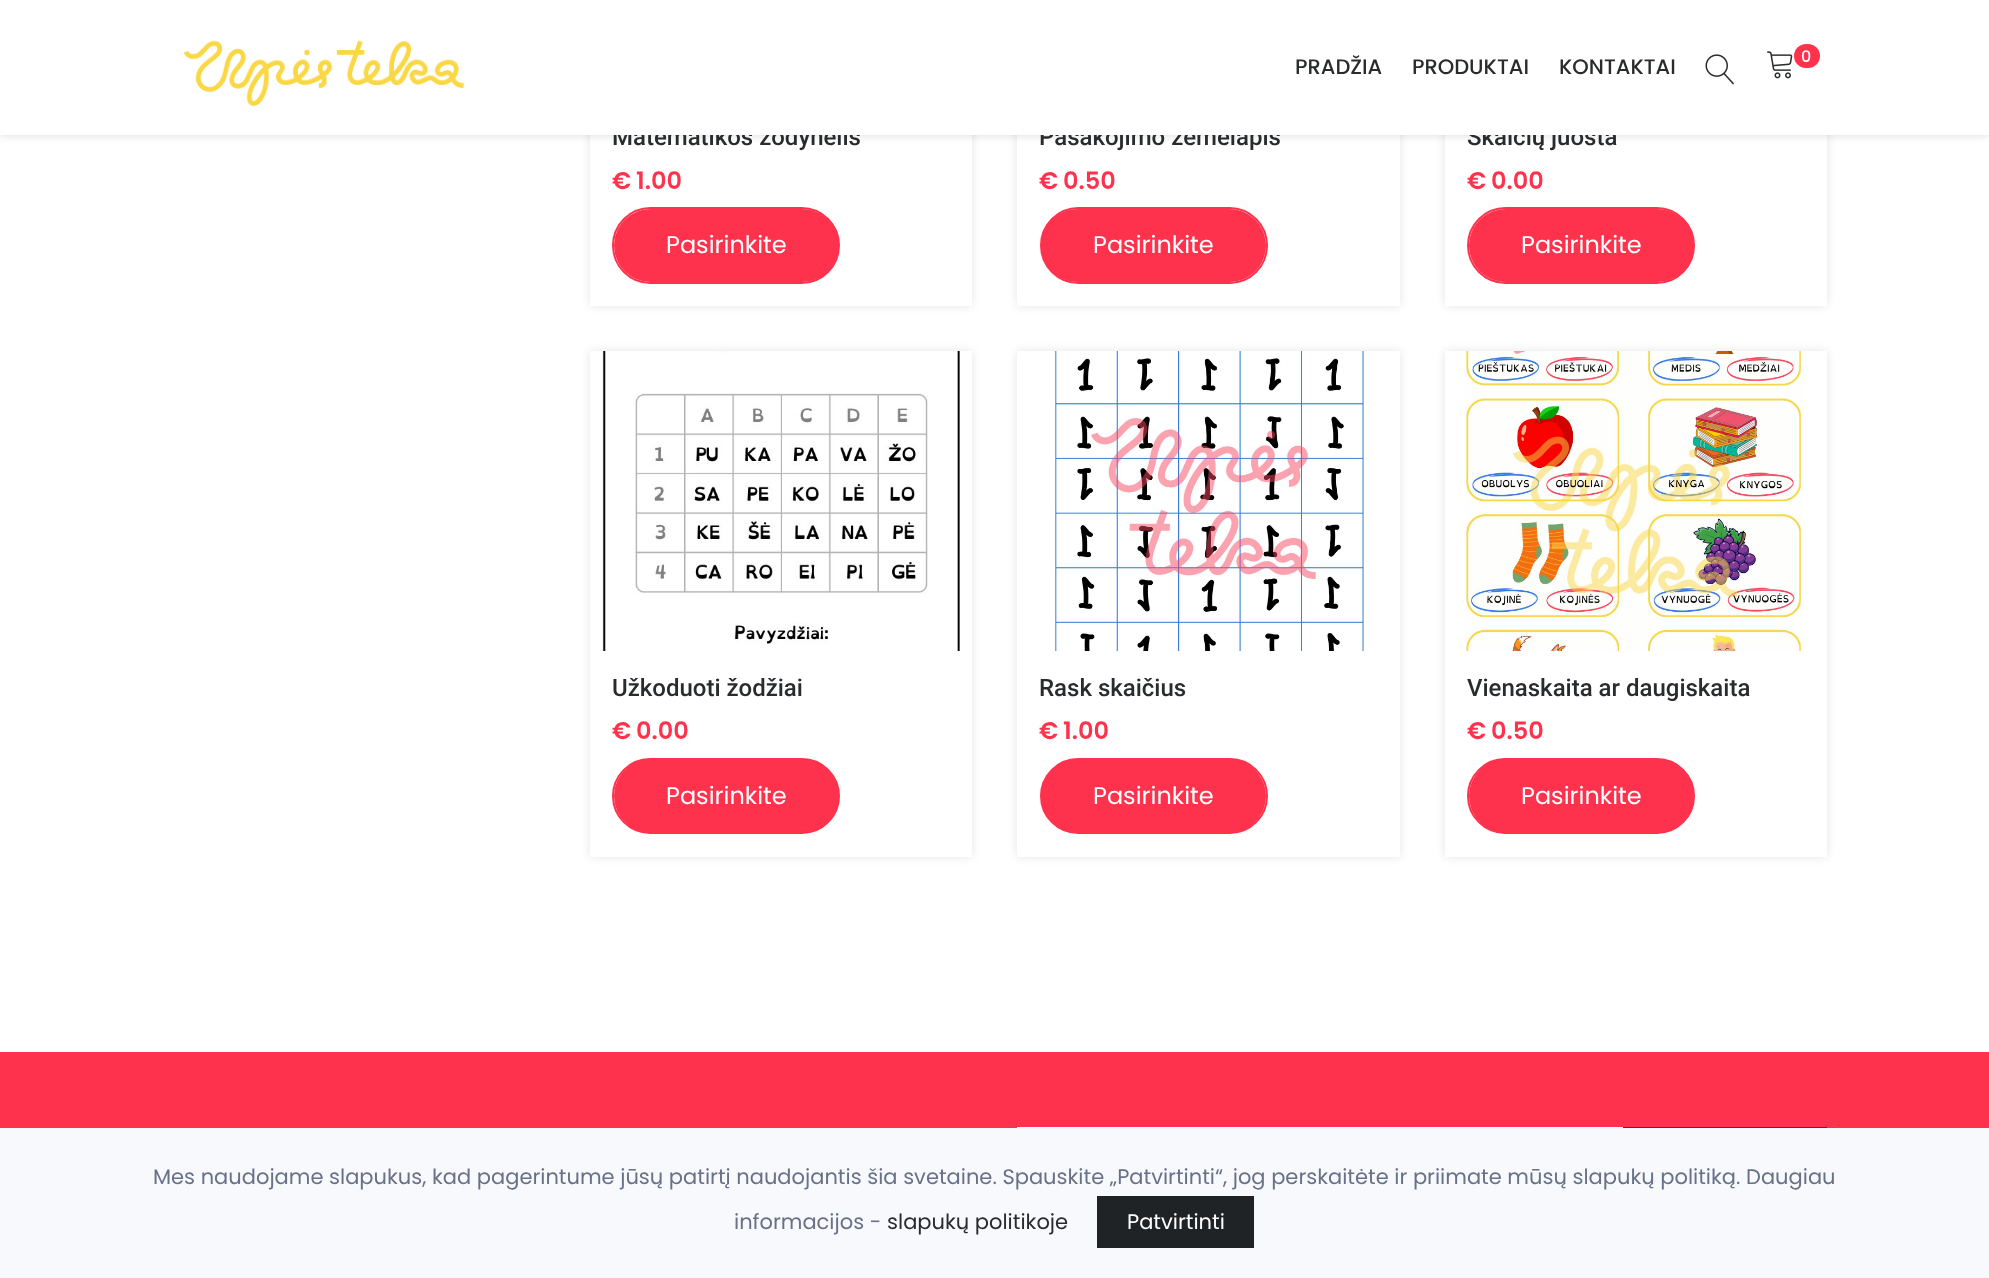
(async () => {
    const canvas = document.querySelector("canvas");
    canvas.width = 1989;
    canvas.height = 1278;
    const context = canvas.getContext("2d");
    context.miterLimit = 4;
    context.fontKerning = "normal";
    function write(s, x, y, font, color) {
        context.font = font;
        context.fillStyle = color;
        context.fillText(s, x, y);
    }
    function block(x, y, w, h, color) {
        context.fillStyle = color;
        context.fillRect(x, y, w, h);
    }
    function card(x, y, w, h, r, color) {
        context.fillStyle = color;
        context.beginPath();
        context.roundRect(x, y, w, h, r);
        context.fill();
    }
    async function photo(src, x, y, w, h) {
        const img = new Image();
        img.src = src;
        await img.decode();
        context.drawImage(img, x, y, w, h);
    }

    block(0, 0, 1989, 1278, "rgb(255, 255, 255)");
    context.fillStyle = "rgba(0, 0, 0, 0.1)";
    context.filter = "blur(5px)";
    context.beginPath();
    context.rect(1017, -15, 383, 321);
    context.fill();
    context.filter = "none";
    block(1017, 135, 383, 171, "rgb(255, 255, 255)");
    context.fillStyle = "rgba(0, 0, 0, 0.15)";
    context.filter = "blur(4px)";
    context.beginPath();
    context.rect(0, 0, 1989, 135);
    context.fill();
    context.filter = "none";
    context.save();
    context.beginPath();
    context.moveTo(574, 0);
    context.lineTo(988, 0);
    context.lineTo(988, 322);
    context.lineTo(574, 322);
    context.closePath();
    context.moveTo(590, -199);
    context.lineTo(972, -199);
    context.lineTo(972, 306);
    context.lineTo(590, 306);
    context.closePath();
    context.clip("evenodd");
    context.fillStyle = "rgba(0, 0, 0, 0.1)";
    context.filter = "blur(5px)";
    context.beginPath();
    context.rect(590, -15, 382, 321);
    context.fill();
    context.filter = "none";
    context.restore();
    write("Matematikos žodynėlis", 612, 145, "500 24px Roboto", "rgb(41, 43, 44)");
    write("Pasakojimo žemėlapis", 1039, 145, "500 24px Roboto", "rgb(41, 43, 44)");
    context.save();
    context.beginPath();
    context.moveTo(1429, 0);
    context.lineTo(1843, 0);
    context.lineTo(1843, 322);
    context.lineTo(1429, 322);
    context.closePath();
    context.moveTo(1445, -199);
    context.lineTo(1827, -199);
    context.lineTo(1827, 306);
    context.lineTo(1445, 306);
    context.closePath();
    context.clip("evenodd");
    context.fillStyle = "rgba(0, 0, 0, 0.1)";
    context.filter = "blur(5px)";
    context.beginPath();
    context.rect(1445, -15, 382, 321);
    context.fill();
    context.filter = "none";
    context.restore();
    write("Skaičių juosta", 1467, 145, "500 24px Roboto", "rgb(41, 43, 44)");
    block(0, 0, 1989, 135, "rgb(255, 255, 255)");
    await photo("media/1.png", 183, 40, 282, 67);
    write("PRADŽIA", 1295, 74, "500 21px Poppins", "rgb(41, 43, 44)");
    write("PRODUKTAI", 1412, 74, "500 21px Poppins", "rgb(41, 43, 44)");
    write("KONTAKTAI", 1559, 74, "500 21px Poppins", "rgb(41, 43, 44)");
    await photo("media/2.png", 1705, 54, 29, 31);
    await photo("media/3.png", 1767, 51, 26, 28);
    card(1794, 44, 26, 24, 12, "rgb(255, 50, 77)");
    write("0", 1801, 62, "500 16px Poppins", "rgb(255, 255, 255)");
    write("€", 612, 189, "600 24px Poppins", "rgb(255, 50, 77)");
    write("1.00", 636, 189, "600 24px Poppins", "rgb(255, 50, 77)");
    context.beginPath();
    context.roundRect(613, 208, 226, 75, 37.5);
    context.strokeStyle = "rgb(255, 50, 77)";
    context.lineWidth = 2;
    context.stroke();
    context.beginPath();
    context.roundRect(614, 209, 115, 73, [36.5, 0, 0, 36.5]);
    context.fill();
    context.beginPath();
    context.roundRect(725, 209, 114, 73, [0, 36.5, 36.5, 0]);
    context.fill();
    write("Pasirinkite", 666, 253, "24px Poppins", "rgb(255, 255, 255)");
    write("€", 1039, 189, "600 24px Poppins", "rgb(255, 50, 77)");
    write("0.50", 1063, 189, "600 24px Poppins", "rgb(255, 50, 77)");
    context.beginPath();
    context.roundRect(1041, 208, 226, 75, 37.5);
    context.stroke();
    context.beginPath();
    context.roundRect(1041, 209, 116, 73, [36.5, 0, 0, 36.5]);
    context.fill();
    context.beginPath();
    context.roundRect(1152, 209, 114, 73, [0, 36.5, 36.5, 0]);
    context.fill();
    write("Pasirinkite", 1093, 253, "24px Poppins", "rgb(255, 255, 255)");
    write("€", 1467, 189, "600 24px Poppins", "rgb(255, 50, 77)");
    write("0.00", 1491, 189, "600 24px Poppins", "rgb(255, 50, 77)");
    context.beginPath();
    context.roundRect(1468, 208, 226, 75, 37.5);
    context.stroke();
    context.beginPath();
    context.roundRect(1469, 209, 115, 73, [36.5, 0, 0, 36.5]);
    context.fill();
    context.beginPath();
    context.roundRect(1580, 209, 114, 73, [0, 36.5, 36.5, 0]);
    context.fill();
    write("Pasirinkite", 1521, 253, "24px Poppins", "rgb(255, 255, 255)");
    context.fillStyle = "rgba(0, 0, 0, 0.1)";
    context.filter = "blur(5px)";
    context.beginPath();
    context.rect(590, 351, 382, 506);
    context.fill();
    context.filter = "none";
    block(590, 351, 382, 506, "rgb(255, 255, 255)");
    await photo("media/4.png", 602, 351, 358, 300);
    write("Užkoduoti žodžiai", 612, 696, "500 24px Roboto", "rgb(41, 43, 44)");
    write("€", 612, 739, "600 24px Poppins", "rgb(255, 50, 77)");
    write("0.00", 636, 739, "600 24px Poppins", "rgb(255, 50, 77)");
    context.beginPath();
    context.roundRect(613, 759, 226, 74, 37);
    context.stroke();
    context.beginPath();
    context.roundRect(614, 759, 115, 74, [37, 0, 0, 37]);
    context.fill();
    context.beginPath();
    context.roundRect(725, 759, 114, 74, [0, 37, 37, 0]);
    context.fill();
    write("Pasirinkite", 666, 804, "24px Poppins", "rgb(255, 255, 255)");
    context.fillStyle = "rgba(0, 0, 0, 0.1)";
    context.filter = "blur(5px)";
    context.beginPath();
    context.rect(1017, 351, 383, 506);
    context.fill();
    context.filter = "none";
    block(1017, 351, 383, 506, "rgb(255, 255, 255)");
    await photo("media/5.png", 1053, 351, 311, 300);
    write("Rask skaičius", 1039, 696, "500 24px Roboto", "rgb(41, 43, 44)");
    write("€", 1039, 739, "600 24px Poppins", "rgb(255, 50, 77)");
    write("1.00", 1063, 739, "600 24px Poppins", "rgb(255, 50, 77)");
    context.beginPath();
    context.roundRect(1041, 759, 226, 74, 37);
    context.stroke();
    context.beginPath();
    context.roundRect(1041, 759, 116, 74, [37, 0, 0, 37]);
    context.fill();
    context.beginPath();
    context.roundRect(1152, 759, 114, 74, [0, 37, 37, 0]);
    context.fill();
    write("Pasirinkite", 1093, 804, "24px Poppins", "rgb(255, 255, 255)");
    context.fillStyle = "rgba(0, 0, 0, 0.1)";
    context.filter = "blur(5px)";
    context.beginPath();
    context.rect(1445, 351, 382, 506);
    context.fill();
    context.filter = "none";
    block(1445, 351, 382, 506, "rgb(255, 255, 255)");
    await photo("media/6.png", 1465, 351, 339, 300);
    write("Vienaskaita ar daugiskaita", 1467, 696, "500 24px Roboto", "rgb(41, 43, 44)");
    write("€", 1467, 739, "600 24px Poppins", "rgb(255, 50, 77)");
    write("0.50", 1491, 739, "600 24px Poppins", "rgb(255, 50, 77)");
    context.beginPath();
    context.roundRect(1468, 759, 226, 74, 37);
    context.stroke();
    context.beginPath();
    context.roundRect(1469, 759, 115, 74, [37, 0, 0, 37]);
    context.fill();
    context.beginPath();
    context.roundRect(1580, 759, 114, 74, [0, 37, 37, 0]);
    context.fill();
    write("Pasirinkite", 1521, 804, "24px Poppins", "rgb(255, 255, 255)");
    block(0, 1052, 1989, 76, "rgb(255, 50, 77)");
    block(1017, 1127, 606, 1, "rgb(255, 255, 255)");
    block(1623, 1127, 204, 1, "rgb(52, 58, 64)");
    block(0, 1128, 1989, 150, "rgb(248, 249, 252)");
    write("Mes naudojame slapukus, kad pagerintume jūsų patirtį naudojantis šia svetaine. Spauskite „Patvirtinti“, jog perskaitėte ir priimate mūsų slapukų politiką. Daugiau", 153, 1184, "21px Poppins", "rgb(104, 113, 136)");
    write("informacijos -", 734, 1229, "21px Poppins", "rgb(104, 113, 136)");
    write("slapukų politikoje", 887, 1229, "21px Poppins", "rgb(41, 43, 44)");
    block(1097, 1196, 157, 52, "rgb(32, 35, 37)");
    write("Patvirtinti", 1127, 1229, "21px Poppins", "rgb(255, 255, 255)");
})();
